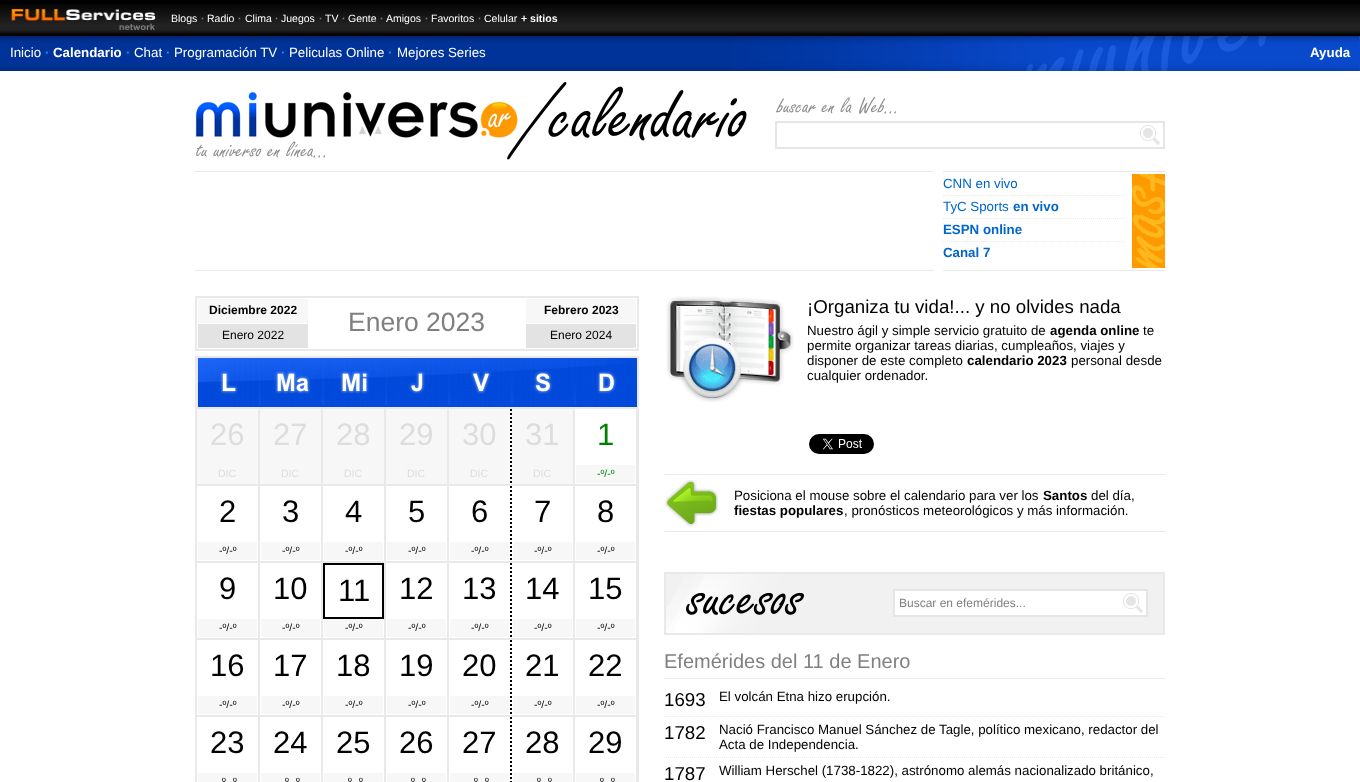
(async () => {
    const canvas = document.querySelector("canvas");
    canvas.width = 1360;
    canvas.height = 782;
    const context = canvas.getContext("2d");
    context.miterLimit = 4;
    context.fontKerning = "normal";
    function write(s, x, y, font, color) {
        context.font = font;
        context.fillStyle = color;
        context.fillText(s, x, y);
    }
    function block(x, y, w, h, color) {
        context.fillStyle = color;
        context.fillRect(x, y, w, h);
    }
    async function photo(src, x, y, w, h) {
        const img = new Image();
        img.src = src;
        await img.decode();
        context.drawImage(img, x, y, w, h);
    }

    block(0, 0, 1360, 782, "rgb(255, 255, 255)");
    block(0, 0, 1360, 36, "rgb(0, 0, 0)");
    await photo("media/1.png", 0, 4, 1360, 31);
    await photo("media/2.png", 11, 9, 145, 21);
    write("Blogs", 171, 22, "10.5px Liberation Sans", "rgb(255, 255, 255)");
    write("·", 201, 22, "bold 10.5px Liberation Sans", "rgb(128, 128, 128)");
    write("Radio", 207, 22, "10.5px Liberation Sans", "rgb(255, 255, 255)");
    write("·", 238, 22, "bold 10.5px Liberation Sans", "rgb(128, 128, 128)");
    write("Clima", 245, 22, "10.5px Liberation Sans", "rgb(255, 255, 255)");
    write("·", 275, 22, "bold 10.5px Liberation Sans", "rgb(128, 128, 128)");
    write("Juegos", 281, 22, "10.5px Liberation Sans", "rgb(255, 255, 255)");
    write("·", 319, 22, "bold 10.5px Liberation Sans", "rgb(128, 128, 128)");
    write("TV", 325, 22, "10.5px Liberation Sans", "rgb(255, 255, 255)");
    write("·", 342, 22, "bold 10.5px Liberation Sans", "rgb(128, 128, 128)");
    write("Gente", 348, 22, "10.5px Liberation Sans", "rgb(255, 255, 255)");
    write("·", 380, 22, "bold 10.5px Liberation Sans", "rgb(128, 128, 128)");
    write("Amigos", 386, 22, "10.5px Liberation Sans", "rgb(255, 255, 255)");
    write("·", 425, 22, "bold 10.5px Liberation Sans", "rgb(128, 128, 128)");
    write("Favoritos", 431, 22, "10.5px Liberation Sans", "rgb(255, 255, 255)");
    write("·", 478, 22, "bold 10.5px Liberation Sans", "rgb(128, 128, 128)");
    write("Celular", 484, 22, "10.5px Liberation Sans", "rgb(255, 255, 255)");
    write("+ sitios", 521, 22, "bold 10.5px Liberation Sans", "rgb(255, 255, 255)");
    await photo("media/3.png", 0, 36, 732, 35);
    await photo("media/4.png", 732, 36, 628, 35);
    write("Inicio", 10, 57, "13.3px Liberation Sans", "rgb(255, 255, 255)");
    write("·", 45, 57, "bold 13.3px Liberation Sans", "rgb(0, 153, 255)");
    write("Calendario", 53, 57, "bold 13.3px Liberation Sans", "rgb(255, 255, 255)");
    write("·", 126, 57, "bold 13.3px Liberation Sans", "rgb(0, 153, 255)");
    write("Chat", 134, 57, "13.3px Liberation Sans", "rgb(255, 255, 255)");
    write("·", 166, 57, "bold 13.3px Liberation Sans", "rgb(0, 153, 255)");
    write("Programación TV", 174, 57, "13.3px Liberation Sans", "rgb(255, 255, 255)");
    write("·", 281, 57, "bold 13.3px Liberation Sans", "rgb(0, 153, 255)");
    write("Peliculas Online", 289, 57, "13.3px Liberation Sans", "rgb(255, 255, 255)");
    write("·", 388, 57, "bold 13.3px Liberation Sans", "rgb(0, 153, 255)");
    write("Mejores Series", 397, 57, "13.3px Liberation Sans", "rgb(255, 255, 255)");
    write("Ayuda", 1310, 57, "bold 13.3px Liberation Sans", "rgb(255, 255, 255)");
    await photo("media/5.png", 195, 82, 552, 78);
    await photo("media/6.png", 776, 96, 120, 18);
    await photo("media/7.png", 1094, 121, 71, 28);
    block(775, 121, 319, 2, "rgb(229, 229, 229)");
    block(775, 147, 319, 2, "rgb(229, 229, 229)");
    block(775, 121, 2, 28, "rgb(229, 229, 229)");
    await photo("media/8.png", 1140, 123, 25, 24);
    await photo("media/9.png", 1127, 171, 38, 100);
    context.fillStyle = "rgb(233, 233, 233)";
    context.beginPath();
    context.moveTo(195, 171);
    context.lineTo(935, 171);
    context.lineTo(933, 172);
    context.lineTo(195, 172);
    context.closePath();
    context.fill();
    context.fillStyle = "rgb(255, 255, 255)";
    context.beginPath();
    context.moveTo(935, 171);
    context.lineTo(935, 271);
    context.lineTo(933, 270);
    context.lineTo(933, 172);
    context.closePath();
    context.fill();
    context.fillStyle = "rgb(233, 233, 233)";
    context.beginPath();
    context.moveTo(935, 271);
    context.lineTo(195, 271);
    context.lineTo(195, 270);
    context.lineTo(933, 270);
    context.closePath();
    context.fill();
    block(943, 171, 184, 1, "rgb(233, 233, 233)");
    block(943, 270, 184, 1, "rgb(233, 233, 233)");
    context.beginPath();
    context.moveTo(943, 195.5);
    context.lineTo(1125, 195.5);
    context.strokeStyle = "rgb(233, 233, 233)";
    context.setLineDash([1, 1]);
    context.stroke();
    write("CNN en vivo", 943, 188, "13.3px Liberation Sans", "rgb(0, 102, 204)");
    context.beginPath();
    context.moveTo(943, 218.5);
    context.lineTo(1125, 218.5);
    context.stroke();
    write("TyC Sports", 943, 211, "13.3px Liberation Sans", "rgb(0, 102, 204)");
    write("en vivo", 1013, 211, "bold 13.3px Liberation Sans", "rgb(0, 102, 204)");
    context.beginPath();
    context.moveTo(943, 241.5);
    context.lineTo(1125, 241.5);
    context.stroke();
    write("ESPN online", 943, 234, "bold 13.3px Liberation Sans", "rgb(0, 102, 204)");
    write("Canal 7", 943, 257, "bold 13.3px Liberation Sans", "rgb(0, 102, 204)");
    context.lineWidth = 2;
    context.setLineDash([]);
    context.strokeRect(196, 297, 442, 53);
    block(198, 299, 110, 24, "rgb(247, 247, 247)");
    write("Diciembre 2022", 209, 314, "bold 12px Liberation Sans", "rgb(0, 0, 0)");
    block(198, 324, 110, 24, "rgb(227, 227, 227)");
    write("Enero 2022", 222, 339, "12px Liberation Sans", "rgb(0, 0, 0)");
    write("Enero 2023", 348, 331, "26.5px Liberation Sans", "rgb(128, 128, 128)");
    block(526, 299, 110, 24, "rgb(247, 247, 247)");
    write("Febrero 2023", 544, 314, "bold 12px Liberation Sans", "rgb(0, 0, 0)");
    block(526, 324, 110, 24, "rgb(227, 227, 227)");
    write("Enero 2024", 550, 339, "12px Liberation Sans", "rgb(0, 0, 0)");
    block(195, 356, 444, 426, "rgb(233, 233, 233)");
    await photo("media/10.png", 198, 358, 439, 49);
    block(197, 409, 61, 75, "rgb(247, 247, 247)");
    write("26", 210, 445, "31px Liberation Sans", "rgb(221, 221, 221)");
    write("DIC", 218, 477, "10.5px Liberation Sans", "rgb(221, 221, 221)");
    block(260, 409, 61, 75, "rgb(247, 247, 247)");
    write("27", 273, 445, "31px Liberation Sans", "rgb(221, 221, 221)");
    write("DIC", 281, 477, "10.5px Liberation Sans", "rgb(221, 221, 221)");
    block(323, 409, 61, 75, "rgb(247, 247, 247)");
    write("28", 336, 445, "31px Liberation Sans", "rgb(221, 221, 221)");
    write("DIC", 344, 477, "10.5px Liberation Sans", "rgb(221, 221, 221)");
    block(386, 409, 61, 75, "rgb(247, 247, 247)");
    write("29", 399, 445, "31px Liberation Sans", "rgb(221, 221, 221)");
    write("DIC", 407, 477, "10.5px Liberation Sans", "rgb(221, 221, 221)");
    block(449, 409, 124, 75, "rgb(247, 247, 247)");
    write("30", 462, 445, "31px Liberation Sans", "rgb(221, 221, 221)");
    write("DIC", 470, 477, "10.5px Liberation Sans", "rgb(221, 221, 221)");
    context.beginPath();
    context.moveTo(511, 409);
    context.lineTo(511, 484);
    context.strokeStyle = "rgb(0, 0, 0)";
    context.setLineDash([2, 2]);
    context.stroke();
    write("31", 525, 445, "31px Liberation Sans", "rgb(221, 221, 221)");
    write("DIC", 533, 477, "10.5px Liberation Sans", "rgb(221, 221, 221)");
    block(575, 409, 61, 75, "rgb(255, 255, 255)");
    write("1", 597, 445, "31px Liberation Sans", "rgb(0, 128, 0)");
    block(576, 465, 59, 18, "rgb(247, 247, 247)");
    write("-º/-º", 597, 477, "10.5px Liberation Sans", "rgb(0, 128, 0)");
    block(197, 486, 61, 75, "rgb(255, 255, 255)");
    write("2", 219, 522, "31px Liberation Sans", "rgb(0, 0, 0)");
    block(198, 542, 59, 18, "rgb(247, 247, 247)");
    write("-º/-º", 219, 554, "10.5px Liberation Sans", "rgb(0, 0, 0)");
    block(260, 486, 61, 75, "rgb(255, 255, 255)");
    write("3", 282, 522, "31px Liberation Sans", "rgb(0, 0, 0)");
    block(261, 542, 59, 18, "rgb(247, 247, 247)");
    write("-º/-º", 282, 554, "10.5px Liberation Sans", "rgb(0, 0, 0)");
    block(323, 486, 61, 75, "rgb(255, 255, 255)");
    write("4", 345, 522, "31px Liberation Sans", "rgb(0, 0, 0)");
    block(324, 542, 59, 18, "rgb(247, 247, 247)");
    write("-º/-º", 345, 554, "10.5px Liberation Sans", "rgb(0, 0, 0)");
    block(386, 486, 61, 75, "rgb(255, 255, 255)");
    write("5", 408, 522, "31px Liberation Sans", "rgb(0, 0, 0)");
    block(387, 542, 59, 18, "rgb(247, 247, 247)");
    write("-º/-º", 408, 554, "10.5px Liberation Sans", "rgb(0, 0, 0)");
    block(449, 486, 124, 75, "rgb(255, 255, 255)");
    write("6", 471, 522, "31px Liberation Sans", "rgb(0, 0, 0)");
    block(450, 542, 59, 18, "rgb(247, 247, 247)");
    write("-º/-º", 471, 554, "10.5px Liberation Sans", "rgb(0, 0, 0)");
    context.beginPath();
    context.moveTo(511, 486);
    context.lineTo(511, 561);
    context.stroke();
    write("7", 534, 522, "31px Liberation Sans", "rgb(0, 0, 0)");
    block(513, 542, 59, 18, "rgb(247, 247, 247)");
    write("-º/-º", 534, 554, "10.5px Liberation Sans", "rgb(0, 0, 0)");
    block(575, 486, 61, 75, "rgb(255, 255, 255)");
    write("8", 597, 522, "31px Liberation Sans", "rgb(0, 0, 0)");
    block(576, 542, 59, 18, "rgb(247, 247, 247)");
    write("-º/-º", 597, 554, "10.5px Liberation Sans", "rgb(0, 0, 0)");
    block(197, 563, 61, 75, "rgb(255, 255, 255)");
    write("9", 219, 599, "31px Liberation Sans", "rgb(0, 0, 0)");
    block(198, 619, 59, 18, "rgb(247, 247, 247)");
    write("-º/-º", 219, 631, "10.5px Liberation Sans", "rgb(0, 0, 0)");
    block(260, 563, 61, 75, "rgb(255, 255, 255)");
    write("10", 273, 599, "31px Liberation Sans", "rgb(0, 0, 0)");
    block(261, 619, 59, 18, "rgb(247, 247, 247)");
    write("-º/-º", 282, 631, "10.5px Liberation Sans", "rgb(0, 0, 0)");
    block(323, 565, 61, 73, "rgb(255, 255, 255)");
    context.setLineDash([]);
    context.strokeRect(324, 564, 59, 54);
    write("11", 338, 601, "31px Liberation Sans", "rgb(0, 0, 0)");
    block(324, 619, 59, 18, "rgb(247, 247, 247)");
    write("-º/-º", 345, 631, "10.5px Liberation Sans", "rgb(0, 0, 0)");
    block(386, 563, 61, 75, "rgb(255, 255, 255)");
    write("12", 399, 599, "31px Liberation Sans", "rgb(0, 0, 0)");
    block(387, 619, 59, 18, "rgb(247, 247, 247)");
    write("-º/-º", 408, 631, "10.5px Liberation Sans", "rgb(0, 0, 0)");
    block(449, 563, 124, 75, "rgb(255, 255, 255)");
    write("13", 462, 599, "31px Liberation Sans", "rgb(0, 0, 0)");
    block(450, 619, 59, 18, "rgb(247, 247, 247)");
    write("-º/-º", 471, 631, "10.5px Liberation Sans", "rgb(0, 0, 0)");
    context.beginPath();
    context.moveTo(511, 563);
    context.lineTo(511, 638);
    context.setLineDash([2, 2]);
    context.stroke();
    write("14", 525, 599, "31px Liberation Sans", "rgb(0, 0, 0)");
    block(513, 619, 59, 18, "rgb(247, 247, 247)");
    write("-º/-º", 534, 631, "10.5px Liberation Sans", "rgb(0, 0, 0)");
    block(575, 563, 61, 75, "rgb(255, 255, 255)");
    write("15", 588, 599, "31px Liberation Sans", "rgb(0, 0, 0)");
    block(576, 619, 59, 18, "rgb(247, 247, 247)");
    write("-º/-º", 597, 631, "10.5px Liberation Sans", "rgb(0, 0, 0)");
    block(197, 640, 61, 75, "rgb(255, 255, 255)");
    write("16", 210, 676, "31px Liberation Sans", "rgb(0, 0, 0)");
    block(198, 696, 59, 18, "rgb(247, 247, 247)");
    write("-º/-º", 219, 708, "10.5px Liberation Sans", "rgb(0, 0, 0)");
    block(260, 640, 61, 75, "rgb(255, 255, 255)");
    write("17", 273, 676, "31px Liberation Sans", "rgb(0, 0, 0)");
    block(261, 696, 59, 18, "rgb(247, 247, 247)");
    write("-º/-º", 282, 708, "10.5px Liberation Sans", "rgb(0, 0, 0)");
    block(323, 640, 61, 75, "rgb(255, 255, 255)");
    write("18", 336, 676, "31px Liberation Sans", "rgb(0, 0, 0)");
    block(324, 696, 59, 18, "rgb(247, 247, 247)");
    write("-º/-º", 345, 708, "10.5px Liberation Sans", "rgb(0, 0, 0)");
    block(386, 640, 61, 75, "rgb(255, 255, 255)");
    write("19", 399, 676, "31px Liberation Sans", "rgb(0, 0, 0)");
    block(387, 696, 59, 18, "rgb(247, 247, 247)");
    write("-º/-º", 408, 708, "10.5px Liberation Sans", "rgb(0, 0, 0)");
    block(449, 640, 124, 75, "rgb(255, 255, 255)");
    write("20", 462, 676, "31px Liberation Sans", "rgb(0, 0, 0)");
    block(450, 696, 59, 18, "rgb(247, 247, 247)");
    write("-º/-º", 471, 708, "10.5px Liberation Sans", "rgb(0, 0, 0)");
    context.beginPath();
    context.moveTo(511, 640);
    context.lineTo(511, 715);
    context.stroke();
    write("21", 525, 676, "31px Liberation Sans", "rgb(0, 0, 0)");
    block(513, 696, 59, 18, "rgb(247, 247, 247)");
    write("-º/-º", 534, 708, "10.5px Liberation Sans", "rgb(0, 0, 0)");
    block(575, 640, 61, 75, "rgb(255, 255, 255)");
    write("22", 588, 676, "31px Liberation Sans", "rgb(0, 0, 0)");
    block(576, 696, 59, 18, "rgb(247, 247, 247)");
    write("-º/-º", 597, 708, "10.5px Liberation Sans", "rgb(0, 0, 0)");
    block(197, 717, 61, 65, "rgb(255, 255, 255)");
    write("23", 210, 753, "31px Liberation Sans", "rgb(0, 0, 0)");
    block(198, 773, 59, 9, "rgb(247, 247, 247)");
    write("º", 222, 785, "10.5px Liberation Sans", "rgb(0, 0, 0)");
    write("º", 233, 785, "10.5px Liberation Sans", "rgb(0, 0, 0)");
    block(260, 717, 61, 65, "rgb(255, 255, 255)");
    write("24", 273, 753, "31px Liberation Sans", "rgb(0, 0, 0)");
    block(261, 773, 59, 9, "rgb(247, 247, 247)");
    write("º", 285, 785, "10.5px Liberation Sans", "rgb(0, 0, 0)");
    write("º", 296, 785, "10.5px Liberation Sans", "rgb(0, 0, 0)");
    block(323, 717, 61, 65, "rgb(255, 255, 255)");
    write("25", 336, 753, "31px Liberation Sans", "rgb(0, 0, 0)");
    block(324, 773, 59, 9, "rgb(247, 247, 247)");
    write("º", 348, 785, "10.5px Liberation Sans", "rgb(0, 0, 0)");
    write("º", 359, 785, "10.5px Liberation Sans", "rgb(0, 0, 0)");
    block(386, 717, 61, 65, "rgb(255, 255, 255)");
    write("26", 399, 753, "31px Liberation Sans", "rgb(0, 0, 0)");
    block(387, 773, 59, 9, "rgb(247, 247, 247)");
    write("º", 411, 785, "10.5px Liberation Sans", "rgb(0, 0, 0)");
    write("º", 422, 785, "10.5px Liberation Sans", "rgb(0, 0, 0)");
    block(449, 717, 124, 65, "rgb(255, 255, 255)");
    write("27", 462, 753, "31px Liberation Sans", "rgb(0, 0, 0)");
    block(450, 773, 59, 9, "rgb(247, 247, 247)");
    write("º", 474, 785, "10.5px Liberation Sans", "rgb(0, 0, 0)");
    write("º", 485, 785, "10.5px Liberation Sans", "rgb(0, 0, 0)");
    context.beginPath();
    context.moveTo(511, 717);
    context.lineTo(511, 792);
    context.stroke();
    write("28", 525, 753, "31px Liberation Sans", "rgb(0, 0, 0)");
    block(513, 773, 59, 9, "rgb(247, 247, 247)");
    write("º", 537, 785, "10.5px Liberation Sans", "rgb(0, 0, 0)");
    write("º", 548, 785, "10.5px Liberation Sans", "rgb(0, 0, 0)");
    block(575, 717, 61, 65, "rgb(255, 255, 255)");
    write("29", 588, 753, "31px Liberation Sans", "rgb(0, 0, 0)");
    block(576, 773, 59, 9, "rgb(247, 247, 247)");
    write("º", 600, 785, "10.5px Liberation Sans", "rgb(0, 0, 0)");
    write("º", 611, 785, "10.5px Liberation Sans", "rgb(0, 0, 0)");
    await photo("media/11.png", 666, 296, 128, 106);
    write("¡Organiza tu vida!... y no olvides nada", 807, 313, "18.7px Liberation Sans", "rgb(0, 0, 0)");
    write("Nuestro ágil y simple servicio gratuito de", 807, 335, "13.3px Liberation Sans", "rgb(0, 0, 0)");
    write("agenda online", 1050, 335, "bold 13.3px Liberation Sans", "rgb(0, 0, 0)");
    write("te", 1143, 335, "13.3px Liberation Sans", "rgb(0, 0, 0)");
    write("permite organizar tareas diarias, cumpleaños, viajes y", 807, 350, "13.3px Liberation Sans", "rgb(0, 0, 0)");
    write("disponer de este completo", 807, 365, "13.3px Liberation Sans", "rgb(0, 0, 0)");
    write("calendario 2023", 967, 365, "bold 13.3px Liberation Sans", "rgb(0, 0, 0)");
    write("personal desde", 1071, 365, "13.3px Liberation Sans", "rgb(0, 0, 0)");
    write("cualquier ordenador.", 807, 380, "13.3px Liberation Sans", "rgb(0, 0, 0)");
    await photo("media/12.png", 809, 434, 65, 20);
    await photo("media/13.png", 665, 480, 53, 47);
    block(664, 474, 501, 1, "rgb(233, 233, 233)");
    block(664, 531, 501, 1, "rgb(233, 233, 233)");
    write("Posiciona el mouse sobre el calendario para ver los", 734, 500, "13.3px Liberation Sans", "rgb(0, 0, 0)");
    write("Santos", 1043, 500, "bold 13.3px Liberation Sans", "rgb(0, 0, 0)");
    write("del día,", 1091, 500, "13.3px Liberation Sans", "rgb(0, 0, 0)");
    write("fiestas populares", 734, 515, "bold 13.3px Liberation Sans", "rgb(0, 0, 0)");
    write(", pronósticos meteorológicos y más información.", 844, 515, "13.3px Liberation Sans", "rgb(0, 0, 0)");
    block(666, 574, 497, 59, "rgb(241, 241, 241)");
    await photo("media/14.png", 666, 574, 138, 59);
    context.strokeStyle = "rgb(233, 233, 233)";
    context.setLineDash([]);
    context.strokeRect(665, 573, 499, 61);
    await photo("media/15.png", 893, 589, 255, 28);
    write("Buscar en efemérides...", 899, 607, "12px Liberation Sans", "rgb(128, 128, 128)");
    await photo("media/8.png", 1123, 591, 25, 24);
    block(664, 678, 501, 1, "rgb(233, 233, 233)");
    write("Efemérides del 11 de Enero", 664, 668, "20px Liberation Sans", "rgb(128, 128, 128)");
    context.beginPath();
    context.moveTo(664, 716.5);
    context.lineTo(1165, 716.5);
    context.lineWidth = 1;
    context.setLineDash([1, 1]);
    context.stroke();
    write("1693", 664, 706, "18.7px Liberation Sans", "rgb(0, 0, 0)");
    write("El volcán Etna hizo erupción.", 719, 701, "13.3px Liberation Sans", "rgb(0, 0, 0)");
    context.beginPath();
    context.moveTo(664, 757.5);
    context.lineTo(1165, 757.5);
    context.stroke();
    write("1782", 664, 739, "18.7px Liberation Sans", "rgb(0, 0, 0)");
    write("Nació Francisco Manuel Sánchez de Tagle, político mexicano, redactor del", 719, 734, "13.3px Liberation Sans", "rgb(0, 0, 0)");
    write("Acta de Independencia.", 719, 749, "13.3px Liberation Sans", "rgb(0, 0, 0)");
    write("1787", 664, 780, "18.7px Liberation Sans", "rgb(0, 0, 0)");
    write("William Herschel (1738-1822), astrónomo alemás nacionalizado británico,", 719, 775, "13.3px Liberation Sans", "rgb(0, 0, 0)");
})();
